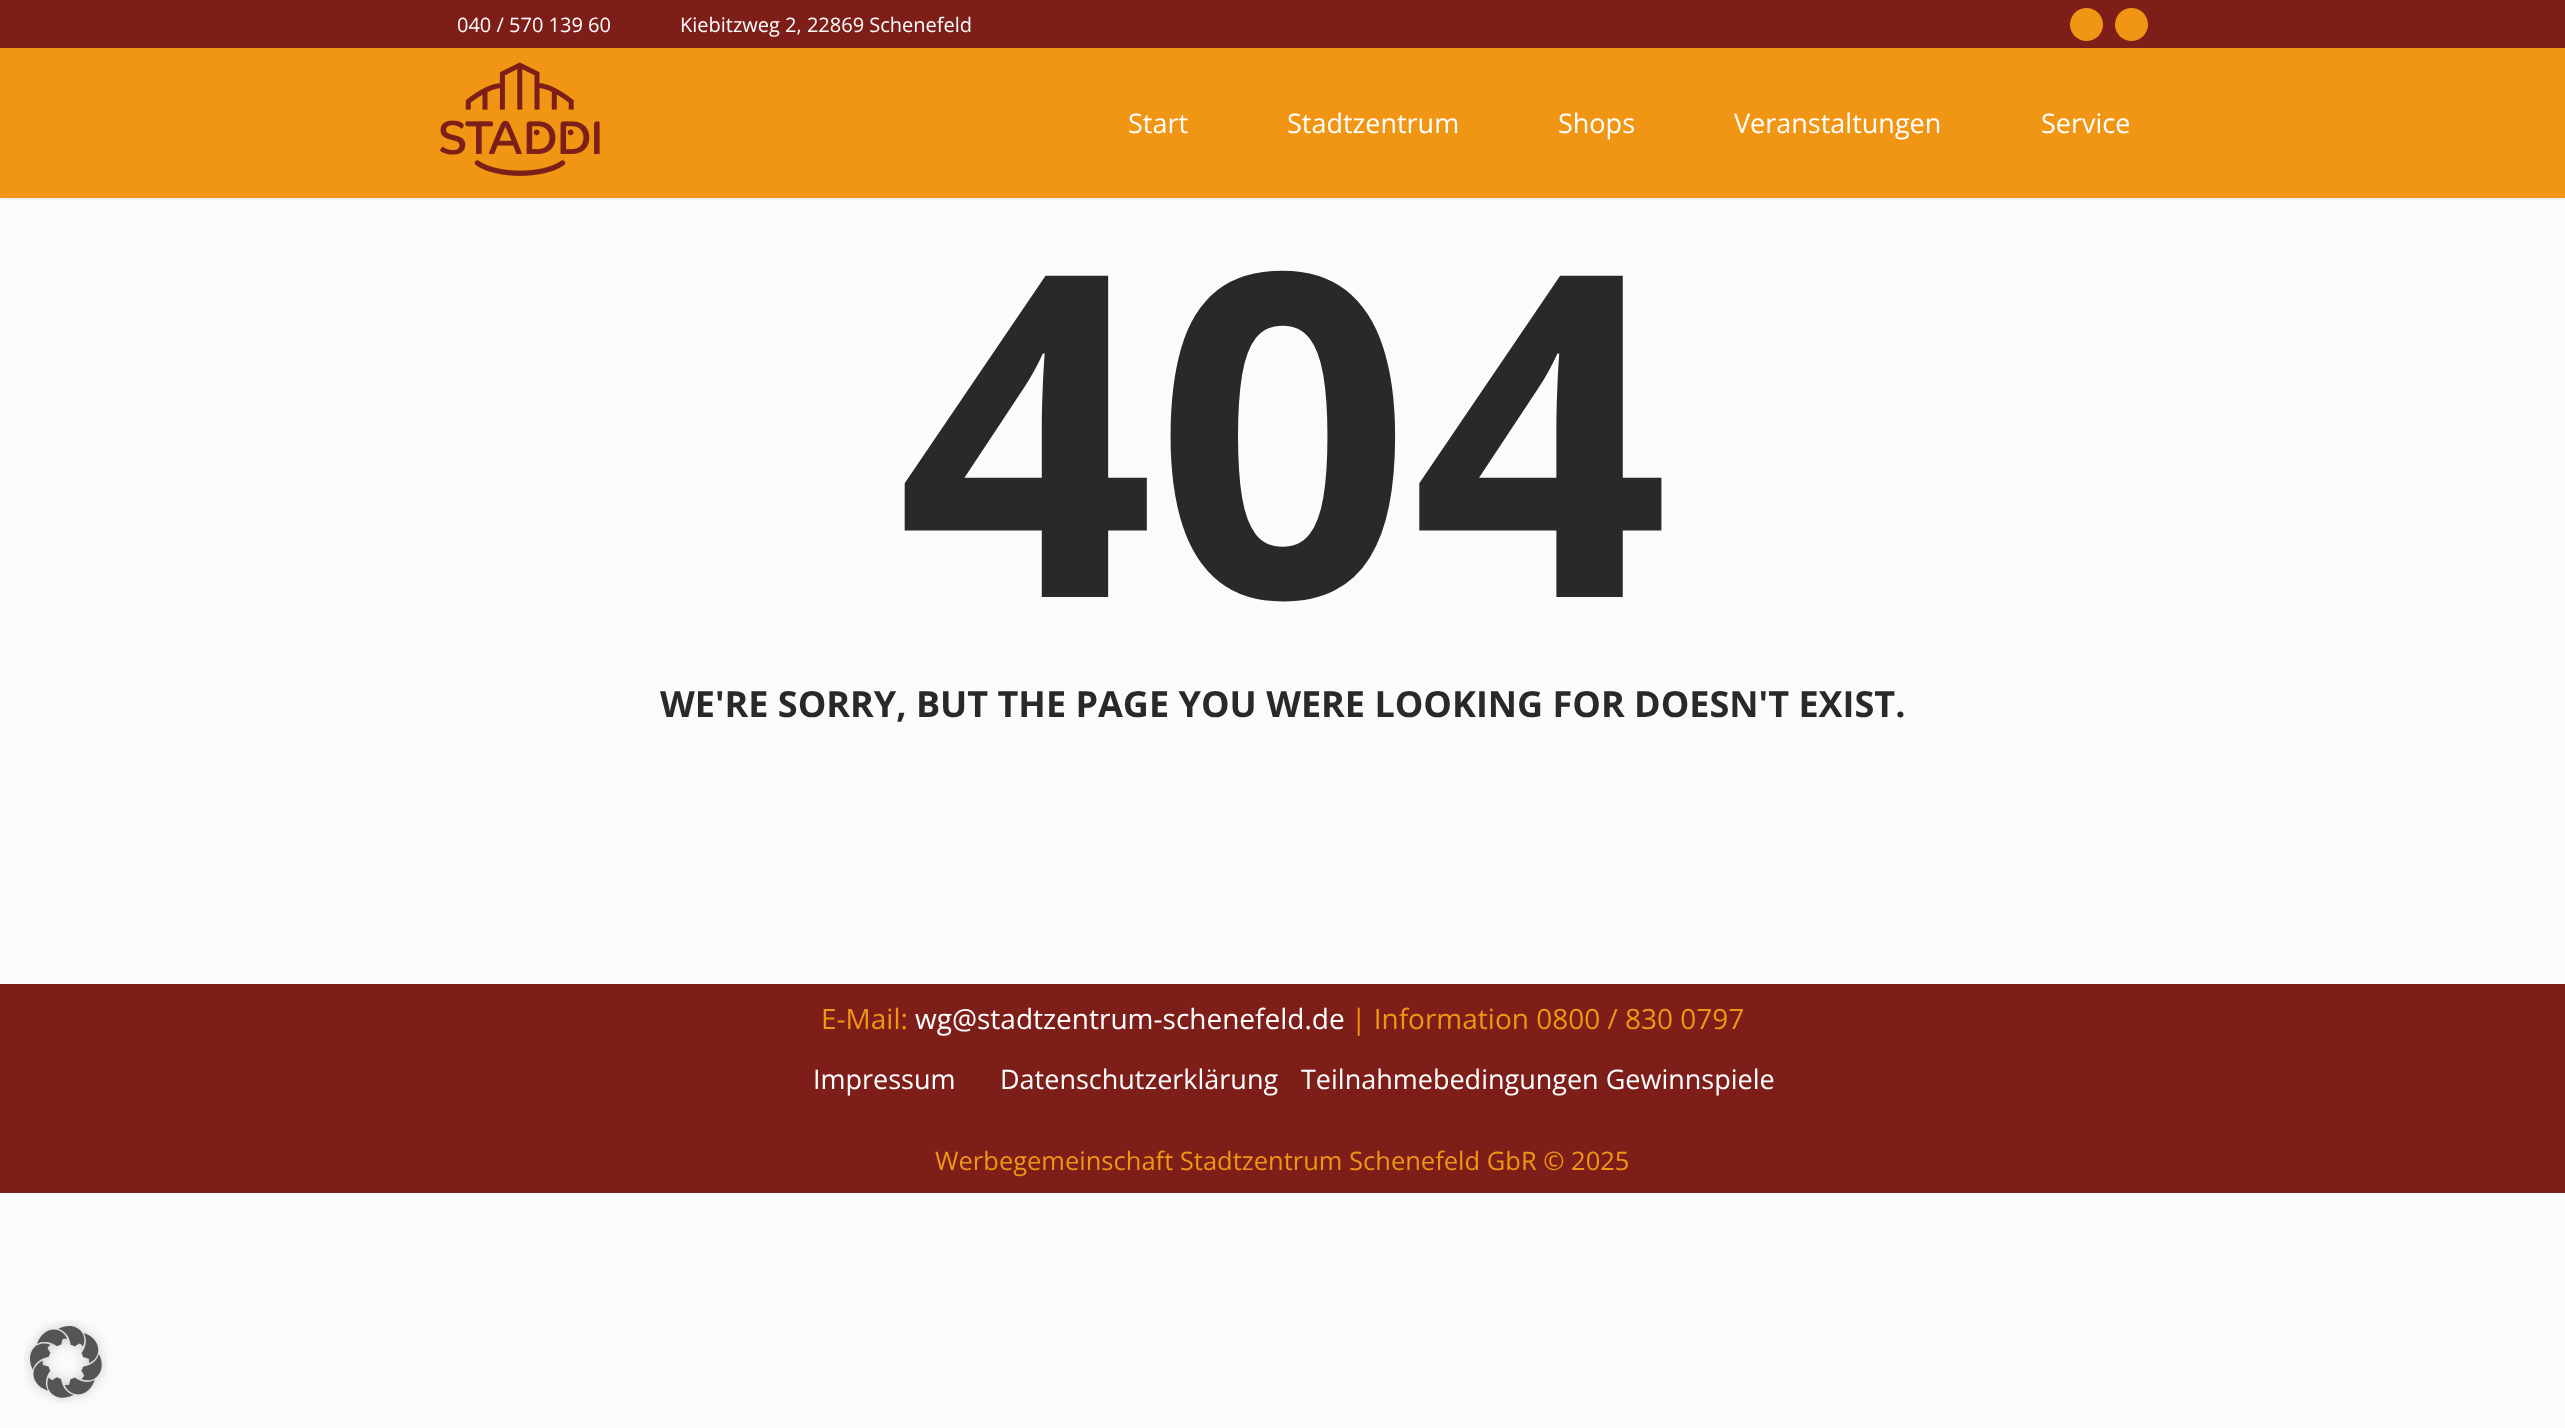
(async () => {
    const canvas = document.querySelector("canvas");
    canvas.width = 2565;
    canvas.height = 1428;
    const context = canvas.getContext("2d");
    context.miterLimit = 4;
    context.fontKerning = "normal";
    function write(s, x, y, font, color) {
        context.font = font;
        context.fillStyle = color;
        context.fillText(s, x, y);
    }
    function block(x, y, w, h, color) {
        context.fillStyle = color;
        context.fillRect(x, y, w, h);
    }
    async function photo(src, x, y, w, h) {
        const img = new Image();
        img.src = src;
        await img.decode();
        context.drawImage(img, x, y, w, h);
    }

    block(0, 0, 2565, 1428, "rgb(251, 251, 251)");
    context.fillStyle = "rgba(0, 0, 0, 0.05)";
    context.filter = "blur(1px)";
    context.beginPath();
    context.rect(0, 2, 2565, 198);
    context.fill();
    context.filter = "none";
    block(0, 0, 2565, 48, "rgb(125, 30, 25)");
    write("040 / 570 139 60", 457, 32, "20px Open Sans", "rgb(255, 255, 255)");
    write("Kiebitzweg 2, 22869 Schenefeld", 680, 32, "20px Open Sans", "rgb(255, 255, 255)");
    context.fillStyle = "rgb(240, 150, 20)";
    context.beginPath();
    context.arc(2086.5, 24.5, 16.5, 0, Math.PI * 2);
    context.fill();
    context.beginPath();
    context.arc(2131.5, 24.5, 16.5, 0, Math.PI * 2);
    context.fill();
    block(0, 48, 2565, 150, "rgb(240, 150, 20)");
    await photo("media/1.png", 439, 62, 161, 114);
    write("Start", 1128, 133, "27px Open Sans", "rgb(255, 255, 255)");
    write("Stadtzentrum", 1287, 133, "27px Open Sans", "rgb(255, 255, 255)");
    write("Shops", 1558, 133, "27px Open Sans", "rgb(255, 255, 255)");
    write("Veranstaltungen", 1734, 133, "27px Open Sans", "rgb(255, 255, 255)");
    write("Service", 2041, 133, "27px Open Sans", "rgb(255, 255, 255)");
    write("404", 897, 597, "bold 450px Open Sans", "rgb(41, 41, 41)");
    write("WE'RE SORRY, BUT THE PAGE YOU WERE LOOKING FOR DOESN'T EXIST.", 660, 717, "bold 36px Open Sans", "rgb(41, 41, 41)");
    block(0, 984, 2565, 209, "rgb(125, 30, 25)");
    write("E-Mail:", 821, 1029, "28px Open Sans", "rgb(240, 150, 20)");
    write("wg@stadtzentrum-schenefeld.de", 915, 1029, "28px Open Sans", "rgb(255, 255, 255)");
    write("| Information 0800 / 830 0797", 1351, 1029, "28px Open Sans", "rgb(240, 150, 20)");
    write("Impressum", 813, 1089, "27px Open Sans", "rgb(255, 255, 255)");
    write("Datenschutzerklärung", 1000, 1089, "27px Open Sans", "rgb(255, 255, 255)");
    write("Teilnahmebedingungen Gewinnspiele", 1301, 1089, "27px Open Sans", "rgb(255, 255, 255)");
    write("Werbegemeinschaft Stadtzentrum Schenefeld GbR © 2025", 935, 1170, "25.5px Open Sans", "rgb(240, 150, 20)");
    await photo("media/2.png", 24, 1320, 84, 84);
})();
